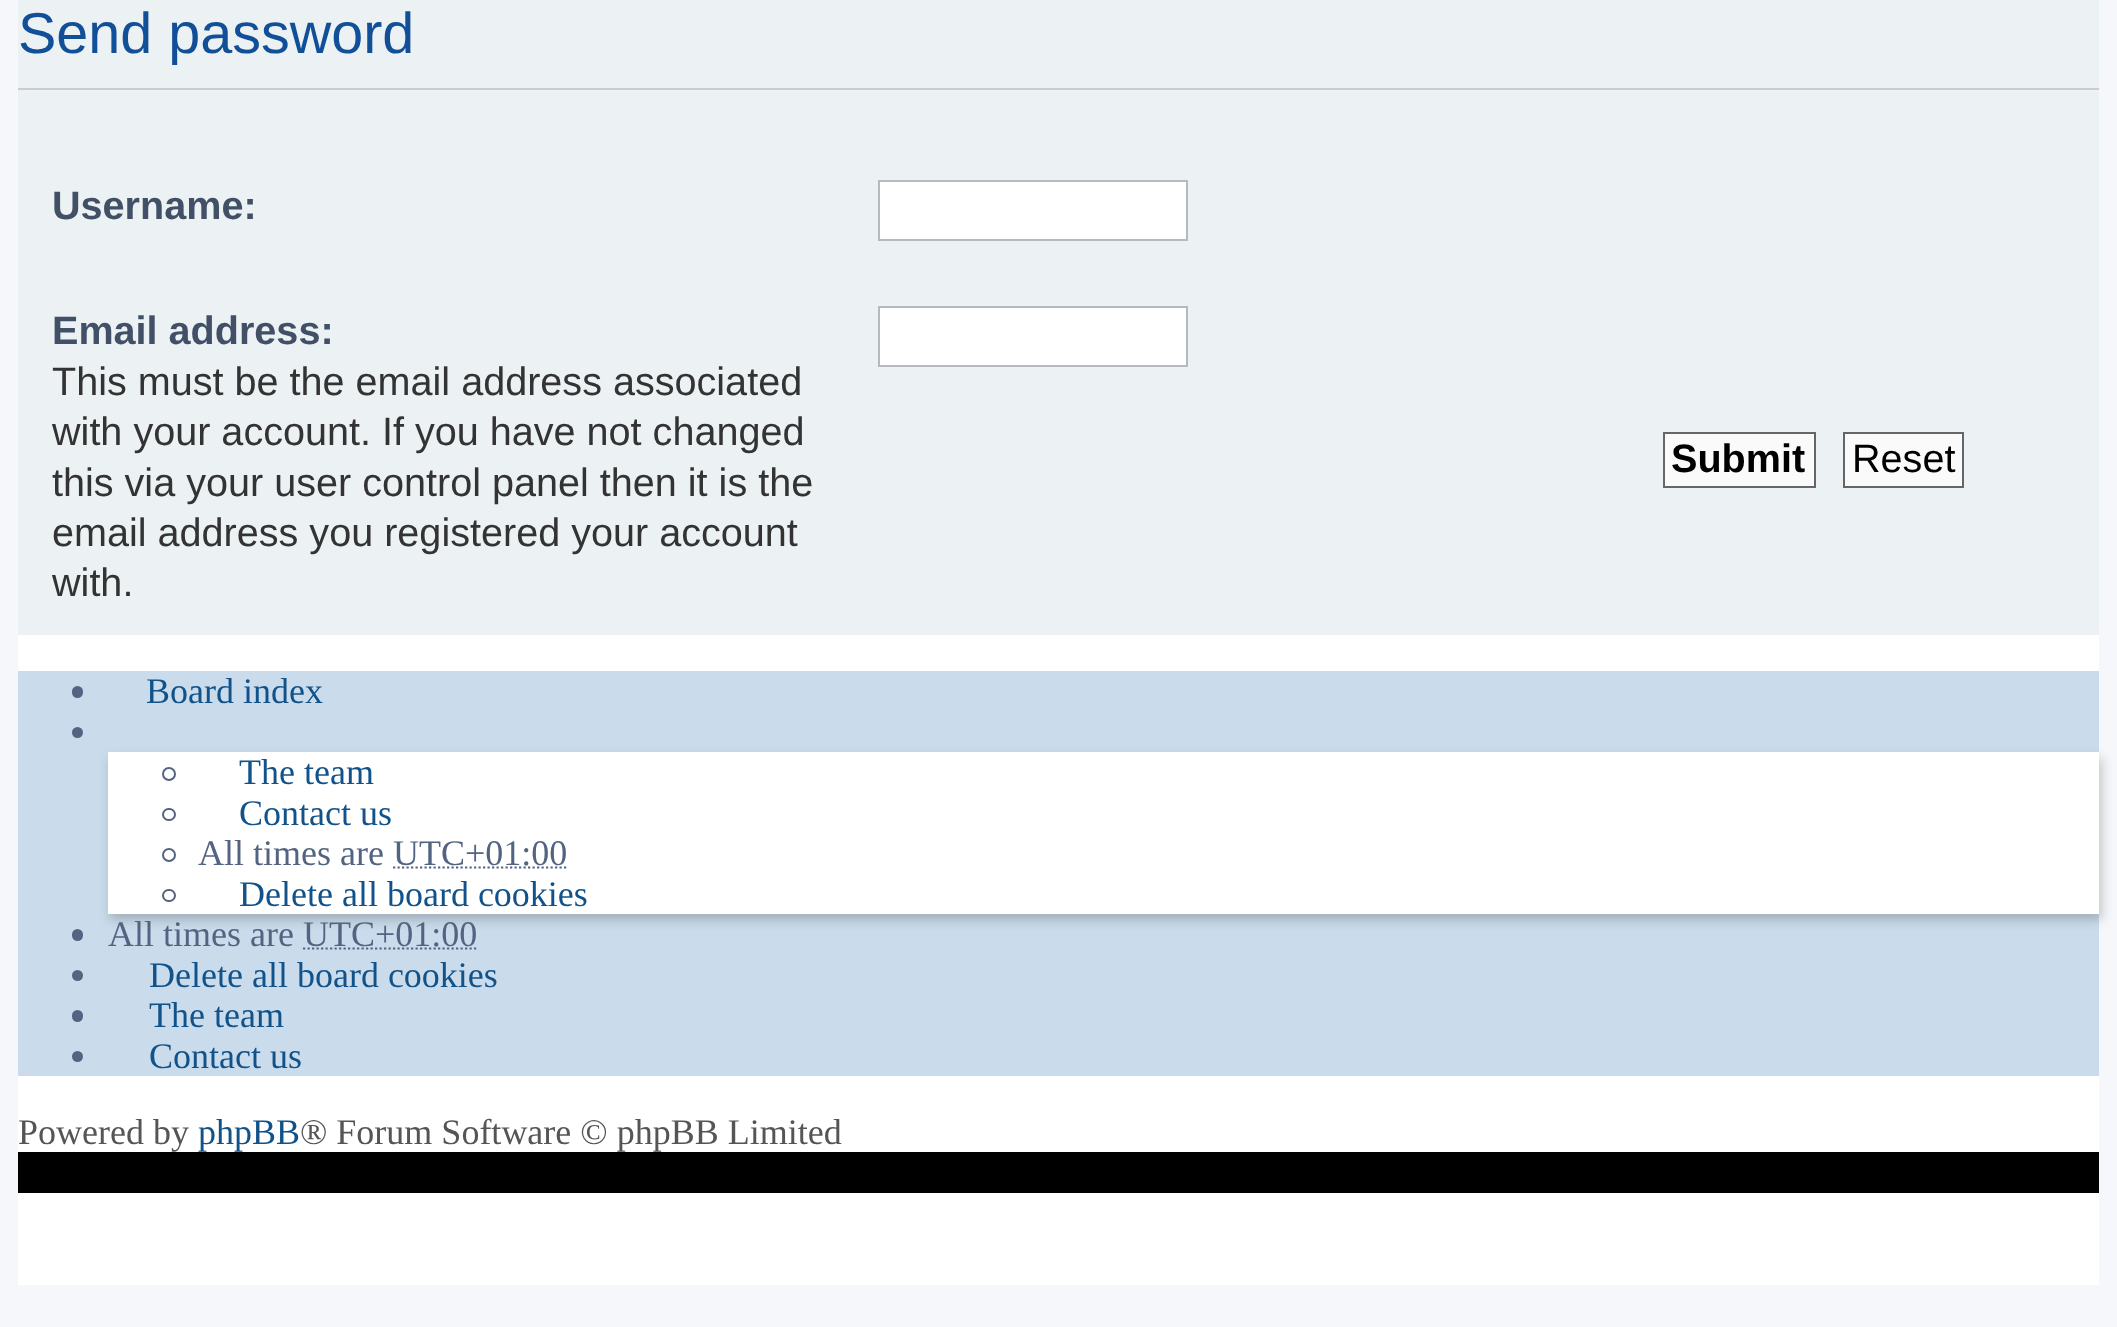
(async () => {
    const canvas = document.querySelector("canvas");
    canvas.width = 2117;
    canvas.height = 1327;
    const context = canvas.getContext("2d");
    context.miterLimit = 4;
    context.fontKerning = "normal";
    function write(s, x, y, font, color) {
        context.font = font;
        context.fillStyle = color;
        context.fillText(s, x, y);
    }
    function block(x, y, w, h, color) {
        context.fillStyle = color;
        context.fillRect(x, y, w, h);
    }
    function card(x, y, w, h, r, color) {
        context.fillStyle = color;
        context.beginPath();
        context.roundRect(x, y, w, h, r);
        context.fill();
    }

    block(0, 0, 2117, 1327, "rgb(245, 247, 250)");
    block(18, 635, 2081, 650, "rgb(255, 255, 255)");
    block(18, 0, 2081, 635, "rgb(236, 241, 243)");
    block(18, 88, 2081, 2, "rgb(204, 204, 204)");
    write("Send password", 18, 53, "57.5px Liberation Sans", "rgb(17, 80, 152)");
    write("Username:", 52, 219, "bold 39.6px Liberation Sans", "rgb(66, 80, 103)");
    context.fillStyle = "rgb(255, 255, 255)";
    context.beginPath();
    context.rect(879, 181, 308, 59);
    context.fill();
    context.strokeStyle = "rgb(180, 186, 192)";
    context.lineWidth = 2;
    context.stroke();
    write("Email address:", 52, 344, "bold 39.6px Liberation Sans", "rgb(66, 80, 103)");
    write("This must be the email address associated", 52, 395, "39.6px Liberation Sans", "rgb(51, 51, 51)");
    write("with your account. If you have not changed", 52, 445, "39.6px Liberation Sans", "rgb(51, 51, 51)");
    write("this via your user control panel then it is the", 52, 496, "39.6px Liberation Sans", "rgb(51, 51, 51)");
    write("email address you registered your account", 52, 546, "39.6px Liberation Sans", "rgb(51, 51, 51)");
    write("with.", 52, 596, "39.6px Liberation Sans", "rgb(51, 51, 51)");
    context.fillStyle = "rgb(255, 255, 255)";
    context.beginPath();
    context.rect(879, 307, 308, 59);
    context.fill();
    context.stroke();
    context.fillStyle = "rgb(250, 250, 250)";
    context.beginPath();
    context.rect(1664, 433, 151, 54);
    context.fill();
    context.strokeStyle = "rgb(102, 102, 102)";
    context.stroke();
    write("Submit", 1671, 472, "bold 39.6px Liberation Sans", "rgb(0, 0, 0)");
    context.fillStyle = "rgb(250, 250, 250)";
    context.beginPath();
    context.rect(1844, 433, 119, 54);
    context.fill();
    context.stroke();
    write("Reset", 1852, 472, "39.6px Liberation Sans", "rgb(0, 0, 0)");
    block(18, 671, 2081, 405, "rgb(202, 220, 235)");
    card(72, 686, 11, 12, 5.5, "rgb(83, 100, 130)");
    write("Board index", 146, 703, "36px Liberation Serif", "rgb(16, 82, 137)");
    context.fillStyle = "rgb(83, 100, 130)";
    context.beginPath();
    context.arc(77.5, 732.5, 5.5, 0, Math.PI * 2);
    context.fill();
    context.fillStyle = "rgba(0, 0, 0, 0.2)";
    context.filter = "blur(5.5px)";
    context.beginPath();
    context.rect(110, 758, 1992, 162);
    context.fill();
    context.filter = "none";
    block(108, 752, 1991, 162, "rgb(255, 255, 255)");
    context.beginPath();
    context.arc(169, 774, 6, 0, Math.PI * 2);
    context.strokeStyle = "rgb(83, 100, 130)";
    context.stroke();
    write("The team", 239, 784, "36px Liberation Serif", "rgb(16, 82, 137)");
    context.beginPath();
    context.roundRect(163, 809, 12, 11, 5.5);
    context.stroke();
    write("Contact us", 239, 825, "36px Liberation Serif", "rgb(16, 82, 137)");
    context.beginPath();
    context.arc(169, 855, 6, 0, Math.PI * 2);
    context.stroke();
    write("All times are UTC+01:00", 198, 865, "36px Liberation Serif", "rgb(83, 100, 130)");
    context.beginPath();
    context.moveTo(393, 867.5);
    context.lineTo(567, 867.5);
    context.lineWidth = 2.2;
    context.setLineDash([2.25, 2.25]);
    context.stroke();
    context.beginPath();
    context.roundRect(163, 890, 12, 11, 5.5);
    context.lineWidth = 2;
    context.setLineDash([]);
    context.stroke();
    write("Delete all board cookies", 239, 906, "36px Liberation Serif", "rgb(16, 82, 137)");
    card(72, 929, 11, 12, 5.5, "rgb(83, 100, 130)");
    write("All times are UTC+01:00", 108, 946, "36px Liberation Serif", "rgb(83, 100, 130)");
    context.beginPath();
    context.moveTo(303, 948.5);
    context.lineTo(477, 948.5);
    context.lineWidth = 2.2;
    context.setLineDash([2.25, 2.25]);
    context.stroke();
    context.beginPath();
    context.arc(77.5, 975.5, 5.5, 0, Math.PI * 2);
    context.fill();
    write("Delete all board cookies", 149, 987, "36px Liberation Serif", "rgb(16, 82, 137)");
    card(72, 1010, 11, 12, 5.5, "rgb(83, 100, 130)");
    write("The team", 149, 1027, "36px Liberation Serif", "rgb(16, 82, 137)");
    context.fillStyle = "rgb(83, 100, 130)";
    context.beginPath();
    context.arc(77.5, 1056.5, 5.5, 0, Math.PI * 2);
    context.fill();
    write("Contact us", 149, 1068, "36px Liberation Serif", "rgb(16, 82, 137)");
    write("Powered by", 18, 1144, "36px Liberation Serif", "rgb(85, 85, 85)");
    write("phpBB", 198, 1144, "36px Liberation Serif", "rgb(16, 82, 137)");
    write("® Forum Software © phpBB Limited", 300, 1144, "36px Liberation Serif", "rgb(85, 85, 85)");
    block(18, 1152, 2081, 41, "rgb(0, 0, 0)");
})();
